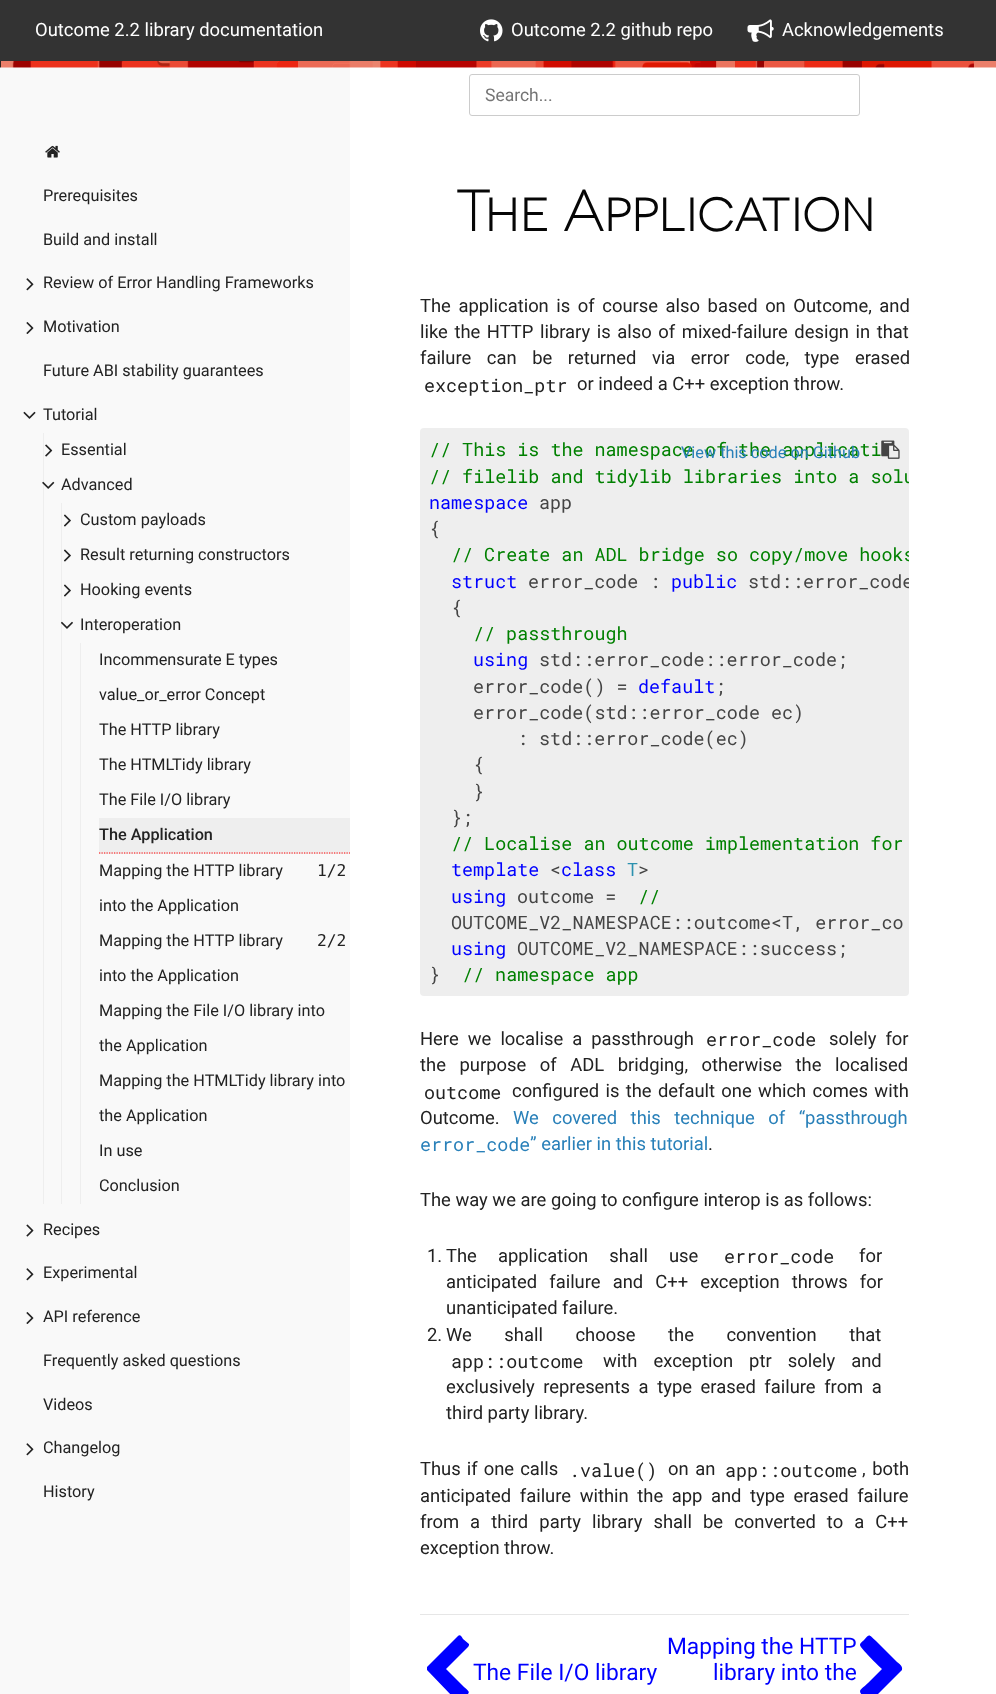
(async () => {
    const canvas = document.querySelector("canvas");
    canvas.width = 996;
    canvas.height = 1694;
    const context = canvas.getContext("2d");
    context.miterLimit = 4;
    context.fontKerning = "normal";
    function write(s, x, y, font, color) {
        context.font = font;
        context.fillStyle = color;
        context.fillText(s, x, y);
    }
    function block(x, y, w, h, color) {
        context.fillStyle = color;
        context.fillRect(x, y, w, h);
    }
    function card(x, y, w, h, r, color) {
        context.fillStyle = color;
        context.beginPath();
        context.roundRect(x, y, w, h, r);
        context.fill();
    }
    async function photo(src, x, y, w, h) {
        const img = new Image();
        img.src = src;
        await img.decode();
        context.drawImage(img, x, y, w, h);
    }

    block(0, 0, 996, 1694, "rgb(255, 255, 255)");
    block(0, 0, 996, 61, "rgb(51, 51, 51)");
    write("Outcome 2.2 library documentation", 35, 36, "18.4px Roboto", "rgb(255, 255, 255)");
    await photo("media/1.png", 480, 19, 23, 23);
    write("Outcome 2.2 github repo", 511, 36, "18.4px Roboto", "rgb(255, 255, 255)");
    await photo("media/2.png", 747, 19, 27, 23);
    write("Acknowledgements", 782, 36, "18.4px Roboto", "rgb(255, 255, 255)");
    block(0, 67, 350, 1627, "rgb(249, 249, 249)");
    await photo("media/3.png", 0, 61, 996, 7);
    await photo("media/4.png", 45, 145, 15, 13);
    write("Prerequisites", 43, 201, "16.25px Roboto", "rgb(34, 34, 34)");
    write("Build and install", 43, 245, "16.25px Roboto", "rgb(34, 34, 34)");
    await photo("media/5.png", 26, 278, 8, 13);
    write("Review of Error Handling Frameworks", 43, 288, "16.25px Roboto", "rgb(34, 34, 34)");
    await photo("media/6.png", 26, 322, 8, 12);
    write("Motivation", 43, 332, "16.25px Roboto", "rgb(34, 34, 34)");
    write("Future ABI stability guarantees", 43, 376, "16.25px Roboto", "rgb(34, 34, 34)");
    await photo("media/7.png", 23, 411, 13, 8);
    write("Tutorial", 43, 420, "16.25px Roboto", "rgb(34, 34, 34)");
    block(43, 433, 1, 771, "rgb(238, 238, 238)");
    await photo("media/8.png", 45, 444, 8, 13);
    write("Essential", 61, 455, "16.25px Roboto", "rgb(34, 34, 34)");
    await photo("media/9.png", 42, 481, 13, 8);
    write("Advanced", 61, 490, "16.25px Roboto", "rgb(34, 34, 34)");
    block(61, 503, 1, 701, "rgb(238, 238, 238)");
    await photo("media/10.png", 64, 514, 7, 13);
    write("Custom payloads", 80, 525, "16.25px Roboto", "rgb(34, 34, 34)");
    await photo("media/10.png", 64, 549, 7, 13);
    write("Result returning constructors", 80, 560, "16.25px Roboto", "rgb(34, 34, 34)");
    await photo("media/10.png", 64, 584, 7, 13);
    write("Hooking events", 80, 595, "16.25px Roboto", "rgb(34, 34, 34)");
    await photo("media/11.png", 61, 621, 12, 8);
    write("Interoperation", 80, 630, "16.25px Roboto", "rgb(34, 34, 34)");
    block(80, 643, 1, 561, "rgb(238, 238, 238)");
    write("Incommensurate E types", 99, 665, "16.25px Roboto", "rgb(34, 34, 34)");
    write("value_or_error Concept", 99, 700, "16.25px Roboto", "rgb(34, 34, 34)");
    write("The HTTP library", 99, 735, "16.25px Roboto", "rgb(34, 34, 34)");
    write("The HTMLTidy library", 99, 770, "16.25px Roboto", "rgb(34, 34, 34)");
    write("The File I/O library", 99, 805, "16.25px Roboto", "rgb(34, 34, 34)");
    block(99, 818, 251, 36, "rgb(238, 238, 238)");
    context.beginPath();
    context.moveTo(99, 853);
    context.lineTo(350, 853);
    context.strokeStyle = "rgb(255, 0, 0)";
    context.lineWidth = 1.2;
    context.setLineDash([1.25, 1.25]);
    context.stroke();
    write("The Application", 99, 840, "500 16.25px Roboto", "rgb(34, 34, 34)");
    write("Mapping the HTTP library", 99, 876, "16.25px Roboto", "rgb(34, 34, 34)");
    write("1/2", 317, 876, "16.25px DejaVu Sans Mono", "rgb(34, 34, 34)");
    write("into the Application", 99, 911, "16.25px Roboto", "rgb(34, 34, 34)");
    write("Mapping the HTTP library", 99, 946, "16.25px Roboto", "rgb(34, 34, 34)");
    write("2/2", 317, 946, "16.25px DejaVu Sans Mono", "rgb(34, 34, 34)");
    write("into the Application", 99, 981, "16.25px Roboto", "rgb(34, 34, 34)");
    write("Mapping the File I/O library into", 99, 1016, "16.25px Roboto", "rgb(34, 34, 34)");
    write("the Application", 99, 1051, "16.25px Roboto", "rgb(34, 34, 34)");
    write("Mapping the HTMLTidy library into", 99, 1086, "16.25px Roboto", "rgb(34, 34, 34)");
    write("the Application", 99, 1121, "16.25px Roboto", "rgb(34, 34, 34)");
    write("In use", 99, 1156, "16.25px Roboto", "rgb(34, 34, 34)");
    write("Conclusion", 99, 1191, "16.25px Roboto", "rgb(34, 34, 34)");
    await photo("media/12.png", 26, 1224, 8, 13);
    write("Recipes", 43, 1235, "16.25px Roboto", "rgb(34, 34, 34)");
    await photo("media/5.png", 26, 1268, 8, 13);
    write("Experimental", 43, 1278, "16.25px Roboto", "rgb(34, 34, 34)");
    await photo("media/6.png", 26, 1312, 8, 12);
    write("API reference", 43, 1322, "16.25px Roboto", "rgb(34, 34, 34)");
    write("Frequently asked questions", 43, 1366, "16.25px Roboto", "rgb(34, 34, 34)");
    write("Videos", 43, 1410, "16.25px Roboto", "rgb(34, 34, 34)");
    await photo("media/5.png", 26, 1443, 8, 13);
    write("Changelog", 43, 1453, "16.25px Roboto", "rgb(34, 34, 34)");
    write("History", 43, 1497, "16.25px Roboto", "rgb(34, 34, 34)");
    context.beginPath();
    context.roundRect(469.5, 74.5, 390, 41, 2.5);
    context.strokeStyle = "rgb(204, 204, 204)";
    context.lineWidth = 1;
    context.setLineDash([]);
    context.stroke();
    write("Search...", 485, 101, "17.5px Roboto", "rgb(117, 117, 117)");
    write("The Application", 455, 231, "bold 57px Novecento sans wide", "rgb(6, 6, 6)");
    context.wordSpacing = "3px";
    write("The application is of course also based on Outcome, and", 420, 312, "18.4px Roboto", "rgb(34, 34, 34)");
    context.wordSpacing = "2px";
    write("like the HTTP library is also of mixed-failure design in that", 420, 338, "18.4px Roboto", "rgb(34, 34, 34)");
    context.wordSpacing = "11px";
    write("failure can be returned via error code, type erased", 420, 364, "18.4px Roboto", "rgb(34, 34, 34)");
    context.wordSpacing = "0px";
    write("exception_ptr", 424, 392, "18.4px Roboto Mono", "rgb(34, 34, 34)");
    write("or indeed a C++ exception throw.", 577, 390, "18.4px Roboto", "rgb(34, 34, 34)");
    card(420, 428, 489, 568, 4, "rgb(238, 238, 238)");
    write("// This is the namespace of the applicati", 429, 456, "18.4px Roboto Mono", "rgb(0, 128, 0)");
    await photo("media/13.png", 881, 440, 19, 19);
    context.save();
    context.beginPath();
    context.roundRect(420, 428, 489, 568, 4);
    context.clip();
    write("// filelib and tidylib libraries into a solu", 429, 483, "18.4px Roboto Mono", "rgb(0, 128, 0)");
    context.restore();
    write("namespace", 429, 509, "18.4px Roboto Mono", "rgb(0, 0, 255)");
    write("app", 539, 509, "18.4px Roboto Mono", "rgb(68, 68, 68)");
    write("{", 429, 535, "18.4px Roboto Mono", "rgb(68, 68, 68)");
    context.save();
    context.beginPath();
    context.roundRect(420, 428, 489, 568, 4);
    context.clip();
    write("// Create an ADL bridge so copy/move hooks", 451, 561, "18.4px Roboto Mono", "rgb(0, 128, 0)");
    context.restore();
    write("struct", 451, 588, "18.4px Roboto Mono", "rgb(0, 0, 255)");
    write("error_code :", 528, 588, "18.4px Roboto Mono", "rgb(68, 68, 68)");
    write("public", 671, 588, "18.4px Roboto Mono", "rgb(0, 0, 255)");
    write("std::", 748, 588, "18.4px Roboto Mono", "rgb(68, 68, 68)");
    context.save();
    context.beginPath();
    context.roundRect(420, 428, 489, 568, 4);
    context.clip();
    write("error_code", 803, 588, "18.4px Roboto Mono", "rgb(68, 68, 68)");
    context.restore();
    write("{", 451, 614, "18.4px Roboto Mono", "rgb(68, 68, 68)");
    write("// passthrough", 473, 640, "18.4px Roboto Mono", "rgb(0, 128, 0)");
    write("using", 473, 666, "18.4px Roboto Mono", "rgb(0, 0, 255)");
    write("std::error_code::error_code;", 539, 666, "18.4px Roboto Mono", "rgb(68, 68, 68)");
    write("error_code() =", 473, 693, "18.4px Roboto Mono", "rgb(68, 68, 68)");
    write("default", 638, 693, "18.4px Roboto Mono", "rgb(0, 0, 255)");
    write(";", 715, 693, "18.4px Roboto Mono", "rgb(68, 68, 68)");
    write("error_code(std::error_code ec)", 473, 719, "18.4px Roboto Mono", "rgb(68, 68, 68)");
    write(": std::error_code(ec)", 517, 745, "18.4px Roboto Mono", "rgb(68, 68, 68)");
    write("{", 473, 771, "18.4px Roboto Mono", "rgb(68, 68, 68)");
    write("}", 473, 798, "18.4px Roboto Mono", "rgb(68, 68, 68)");
    write("};", 451, 824, "18.4px Roboto Mono", "rgb(68, 68, 68)");
    write("// Localise an outcome implementation for", 451, 850, "18.4px Roboto Mono", "rgb(0, 128, 0)");
    write("template", 451, 876, "18.4px Roboto Mono", "rgb(0, 0, 255)");
    write("<", 550, 876, "18.4px Roboto Mono", "rgb(68, 68, 68)");
    write("class", 561, 876, "18.4px Roboto Mono", "rgb(0, 0, 255)");
    write("T", 627, 876, "18.4px Roboto Mono", "rgb(43, 145, 175)");
    write(">", 638, 876, "18.4px Roboto Mono", "rgb(68, 68, 68)");
    write("using", 451, 903, "18.4px Roboto Mono", "rgb(0, 0, 255)");
    write("outcome =", 517, 903, "18.4px Roboto Mono", "rgb(68, 68, 68)");
    write("//", 638, 903, "18.4px Roboto Mono", "rgb(0, 128, 0)");
    write("OUTCOME_V2_NAMESPACE::outcome<T, error_co", 451, 929, "18.4px Roboto Mono", "rgb(68, 68, 68)");
    write("using", 451, 955, "18.4px Roboto Mono", "rgb(0, 0, 255)");
    write("OUTCOME_V2_NAMESPACE::success;", 517, 955, "18.4px Roboto Mono", "rgb(68, 68, 68)");
    write("}", 429, 981, "18.4px Roboto Mono", "rgb(68, 68, 68)");
    write("// namespace app", 462, 981, "18.4px Roboto Mono", "rgb(0, 128, 0)");
    write("View this code on Github", 681, 458, "16.25px Roboto", "rgb(41, 128, 185)");
    context.wordSpacing = "4.5px";
    write("Here we localise a passthrough", 420, 1045, "18.4px Roboto", "rgb(34, 34, 34)");
    context.wordSpacing = "0px";
    write("error_code", 706, 1046, "18.4px Roboto Mono", "rgb(34, 34, 34)");
    context.wordSpacing = "4.5px";
    write("solely for", 829, 1045, "18.4px Roboto", "rgb(34, 34, 34)");
    context.wordSpacing = "9px";
    write("the purpose of ADL bridging, otherwise the localised", 420, 1071, "18.4px Roboto", "rgb(34, 34, 34)");
    context.wordSpacing = "0px";
    write("outcome", 424, 1099, "18.4px Roboto Mono", "rgb(34, 34, 34)");
    context.wordSpacing = "1.75px";
    write("configured is the default one which comes with", 512, 1097, "18.4px Roboto", "rgb(34, 34, 34)");
    context.wordSpacing = "0px";
    write("Outcome.", 420, 1124, "18.4px Roboto", "rgb(34, 34, 34)");
    context.wordSpacing = "9px";
    write("We covered this technique of “passthrough", 513, 1124, "18.4px Roboto", "rgb(41, 128, 185)");
    context.wordSpacing = "0px";
    write("error_code", 420, 1151, "18.4px Roboto Mono", "rgb(41, 128, 185)");
    write("” earlier in this tutorial", 530, 1150, "18.4px Roboto", "rgb(41, 128, 185)");
    write(".", 708, 1150, "18.4px Roboto", "rgb(34, 34, 34)");
    write("The way we are going to configure interop is as follows:", 420, 1206, "18.4px Roboto", "rgb(34, 34, 34)");
    write("1.", 427, 1262, "18.4px Roboto", "rgb(34, 34, 34)");
    context.wordSpacing = "16.5px";
    write("The application shall use", 446, 1262, "18.4px Roboto", "rgb(34, 34, 34)");
    context.wordSpacing = "0px";
    write("error_code", 724, 1263, "18.4px Roboto Mono", "rgb(34, 34, 34)");
    write("for", 859, 1262, "18.4px Roboto", "rgb(34, 34, 34)");
    context.wordSpacing = "7.5px";
    write("anticipated failure and C++ exception throws for", 446, 1288, "18.4px Roboto", "rgb(34, 34, 34)");
    context.wordSpacing = "0px";
    write("unanticipated failure.", 446, 1314, "18.4px Roboto", "rgb(34, 34, 34)");
    write("2.", 427, 1341, "18.4px Roboto", "rgb(34, 34, 34)");
    context.wordSpacing = "28px";
    write("We shall choose the convention that", 446, 1341, "18.4px Roboto", "rgb(34, 34, 34)");
    context.wordSpacing = "0px";
    write("app::outcome", 451, 1368, "18.4px Roboto Mono", "rgb(34, 34, 34)");
    context.wordSpacing = "11.5px";
    write("with exception ptr solely and", 603, 1367, "18.4px Roboto", "rgb(34, 34, 34)");
    context.wordSpacing = "4px";
    write("exclusively represents a type erased failure from a", 446, 1393, "18.4px Roboto", "rgb(34, 34, 34)");
    context.wordSpacing = "0px";
    write("third party library.", 446, 1419, "18.4px Roboto", "rgb(34, 34, 34)");
    context.wordSpacing = "1.5px";
    write("Thus if one calls", 420, 1475, "18.4px Roboto", "rgb(34, 34, 34)");
    context.wordSpacing = "0px";
    write(".value()", 569, 1477, "18.4px Roboto Mono", "rgb(34, 34, 34)");
    context.wordSpacing = "2px";
    write("on an", 668, 1475, "18.4px Roboto", "rgb(34, 34, 34)");
    context.wordSpacing = "0px";
    write("app::outcome", 725, 1477, "18.4px Roboto Mono", "rgb(34, 34, 34)");
    context.wordSpacing = "2px";
    write(", both", 862, 1475, "18.4px Roboto", "rgb(34, 34, 34)");
    context.wordSpacing = "4px";
    write("anticipated failure within the app and type erased failure", 420, 1502, "18.4px Roboto", "rgb(34, 34, 34)");
    context.wordSpacing = "6.5px";
    write("from a third party library shall be converted to a C++", 420, 1528, "18.4px Roboto", "rgb(34, 34, 34)");
    context.wordSpacing = "0px";
    write("exception throw.", 420, 1554, "18.4px Roboto", "rgb(34, 34, 34)");
    block(420, 1614, 489, 1, "rgb(230, 230, 230)");
    context.fillStyle = "rgb(0, 0, 255)";
    context.beginPath();
    context.moveTo(468, 1647);
    context.lineTo(446, 1669);
    context.lineTo(464, 1687);
    context.bezierCurveTo(471, 1693, 470, 1692, 463, 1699);
    context.bezierCurveTo(458, 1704, 458, 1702, 452, 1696);
    context.lineTo(427, 1670);
    context.lineTo(427, 1667);
    context.lineTo(458, 1636);
    context.bezierCurveTo(460, 1634, 462, 1637, 463, 1639);
    context.lineTo(469, 1644);
    context.bezierCurveTo(469, 1645, 469, 1646, 468, 1647);
    context.closePath();
    context.fill();
    write("The File I/O library", 473, 1680, "22.75px Roboto", "rgb(0, 0, 255)");
    write("Mapping the HTTP", 667, 1654, "22.75px Roboto", "rgb(0, 0, 255)");
    write("library into the", 713, 1680, "22.75px Roboto", "rgb(0, 0, 255)");
    context.beginPath();
    context.moveTo(902, 1670);
    context.lineTo(871, 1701);
    context.bezierCurveTo(868, 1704, 865, 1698, 863, 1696);
    context.bezierCurveTo(857, 1690, 861, 1690, 868, 1683);
    context.lineTo(882, 1669);
    context.bezierCurveTo(879, 1666, 860, 1648, 860, 1645);
    context.bezierCurveTo(860, 1643, 863, 1641, 864, 1640);
    context.bezierCurveTo(870, 1633, 869, 1635, 876, 1641);
    context.lineTo(897, 1662);
    context.bezierCurveTo(897, 1662, 903, 1666, 902, 1669);
    context.closePath();
    context.fill();
})();
